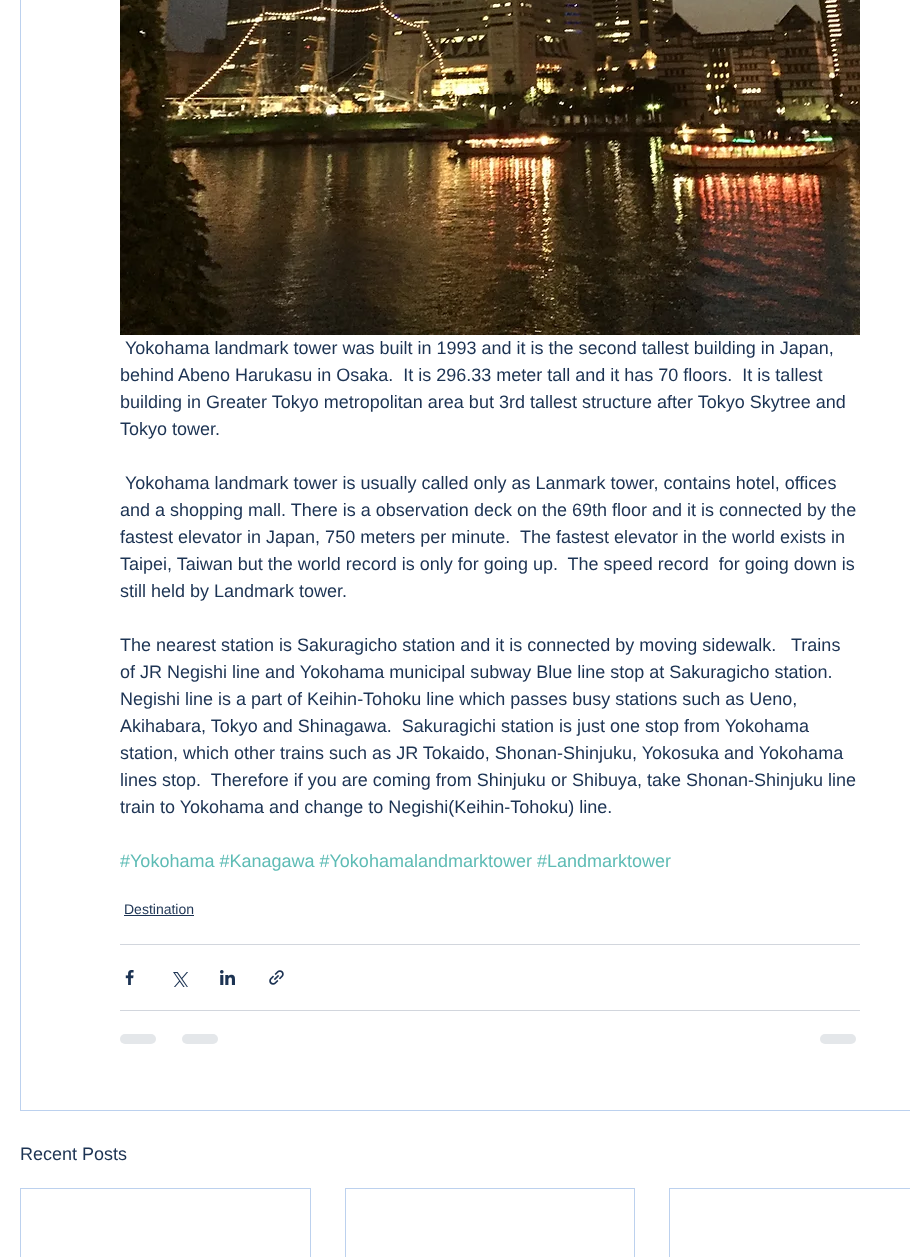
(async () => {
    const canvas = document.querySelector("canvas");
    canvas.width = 910;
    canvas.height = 1257;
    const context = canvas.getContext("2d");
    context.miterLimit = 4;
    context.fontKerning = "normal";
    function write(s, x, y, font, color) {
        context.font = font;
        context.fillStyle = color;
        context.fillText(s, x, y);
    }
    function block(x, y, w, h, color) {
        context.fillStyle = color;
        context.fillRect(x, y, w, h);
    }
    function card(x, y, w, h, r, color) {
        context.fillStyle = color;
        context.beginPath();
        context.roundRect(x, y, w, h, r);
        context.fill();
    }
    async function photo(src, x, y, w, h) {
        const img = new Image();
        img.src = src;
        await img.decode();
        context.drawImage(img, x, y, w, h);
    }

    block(0, 0, 910, 1257, "rgb(255, 255, 255)");
    context.strokeStyle = "rgb(188, 209, 238)";
    context.strokeRect(20.5, -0.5, 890, 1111);
    await photo("media/1.png", 120, 0, 740, 335);
    write("Yokohama landmark tower was built in 1993 and it is the second tallest building in Japan,", 125, 354, "18px Liberation Sans", "rgb(28, 51, 83)");
    write("behind Abeno Harukasu in Osaka.  It is 296.33 meter tall and it has 70 floors.  It is tallest", 120, 381, "18px Liberation Sans", "rgb(28, 51, 83)");
    write("building in Greater Tokyo metropolitan area but 3rd tallest structure after Tokyo Skytree and", 120, 408, "18px Liberation Sans", "rgb(28, 51, 83)");
    write("Tokyo tower.", 120, 435, "18px Liberation Sans", "rgb(28, 51, 83)");
    write("Yokohama landmark tower is usually called only as Lanmark tower, contains hotel, offices", 125, 489, "18px Liberation Sans", "rgb(28, 51, 83)");
    write("and a shopping mall. There is a observation deck on the 69th floor and it is connected by the", 120, 516, "18px Liberation Sans", "rgb(28, 51, 83)");
    write("fastest elevator in Japan, 750 meters per minute.  The fastest elevator in the world exists in", 120, 543, "18px Liberation Sans", "rgb(28, 51, 83)");
    write("Taipei, Taiwan but the world record is only for going up.  The speed record  for going down is", 120, 570, "18px Liberation Sans", "rgb(28, 51, 83)");
    write("still held by Landmark tower.", 120, 597, "18px Liberation Sans", "rgb(28, 51, 83)");
    write("The nearest station is Sakuragicho station and it is connected by moving sidewalk.   Trains", 120, 651, "18px Liberation Sans", "rgb(28, 51, 83)");
    write("of JR Negishi line and Yokohama municipal subway Blue line stop at Sakuragicho station.", 120, 678, "18px Liberation Sans", "rgb(28, 51, 83)");
    write("Negishi line is a part of Keihin-Tohoku line which passes busy stations such as Ueno,", 120, 705, "18px Liberation Sans", "rgb(28, 51, 83)");
    write("Akihabara, Tokyo and Shinagawa.  Sakuragichi station is just one stop from Yokohama", 120, 732, "18px Liberation Sans", "rgb(28, 51, 83)");
    write("station, which other trains such as JR Tokaido, Shonan-Shinjuku, Yokosuka and Yokohama", 120, 759, "18px Liberation Sans", "rgb(28, 51, 83)");
    write("lines stop.  Therefore if you are coming from Shinjuku or Shibuya, take Shonan-Shinjuku line", 120, 786, "18px Liberation Sans", "rgb(28, 51, 83)");
    write("train to Yokohama and change to Negishi(Keihin-Tohoku) line.", 120, 813, "18px Liberation Sans", "rgb(28, 51, 83)");
    write("#Yokohama #Kanagawa #Yokohamalandmarktower #Landmarktower", 120, 867, "18px Liberation Sans", "rgb(94, 188, 181)");
    write("Destination", 124, 914, "14px Liberation Sans", "rgb(28, 51, 83)");
    block(124, 915, 70, 1, "rgb(28, 51, 83)");
    block(120, 944, 740, 1, "rgb(210, 214, 221)");
    await photo("media/2.png", 125, 970, 9, 15);
    await photo("media/3.png", 173, 972, 15, 15);
    await photo("media/4.png", 220, 970, 15, 15);
    await photo("media/5.png", 269, 970, 15, 15);
    block(120, 1010, 740, 1, "rgb(210, 214, 221)");
    card(120, 1034, 36, 10, 5, "rgb(228, 231, 234)");
    card(182, 1034, 36, 10, 5, "rgb(228, 231, 234)");
    card(820, 1034, 36, 10, 5, "rgb(228, 231, 234)");
    write("Recent Posts", 20, 1160, "18px Liberation Sans", "rgb(28, 51, 83)");
    context.strokeRect(20.5, 1188.5, 290, 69);
    context.strokeRect(345.5, 1188.5, 289, 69);
    context.strokeRect(669.5, 1188.5, 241, 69);
})();
